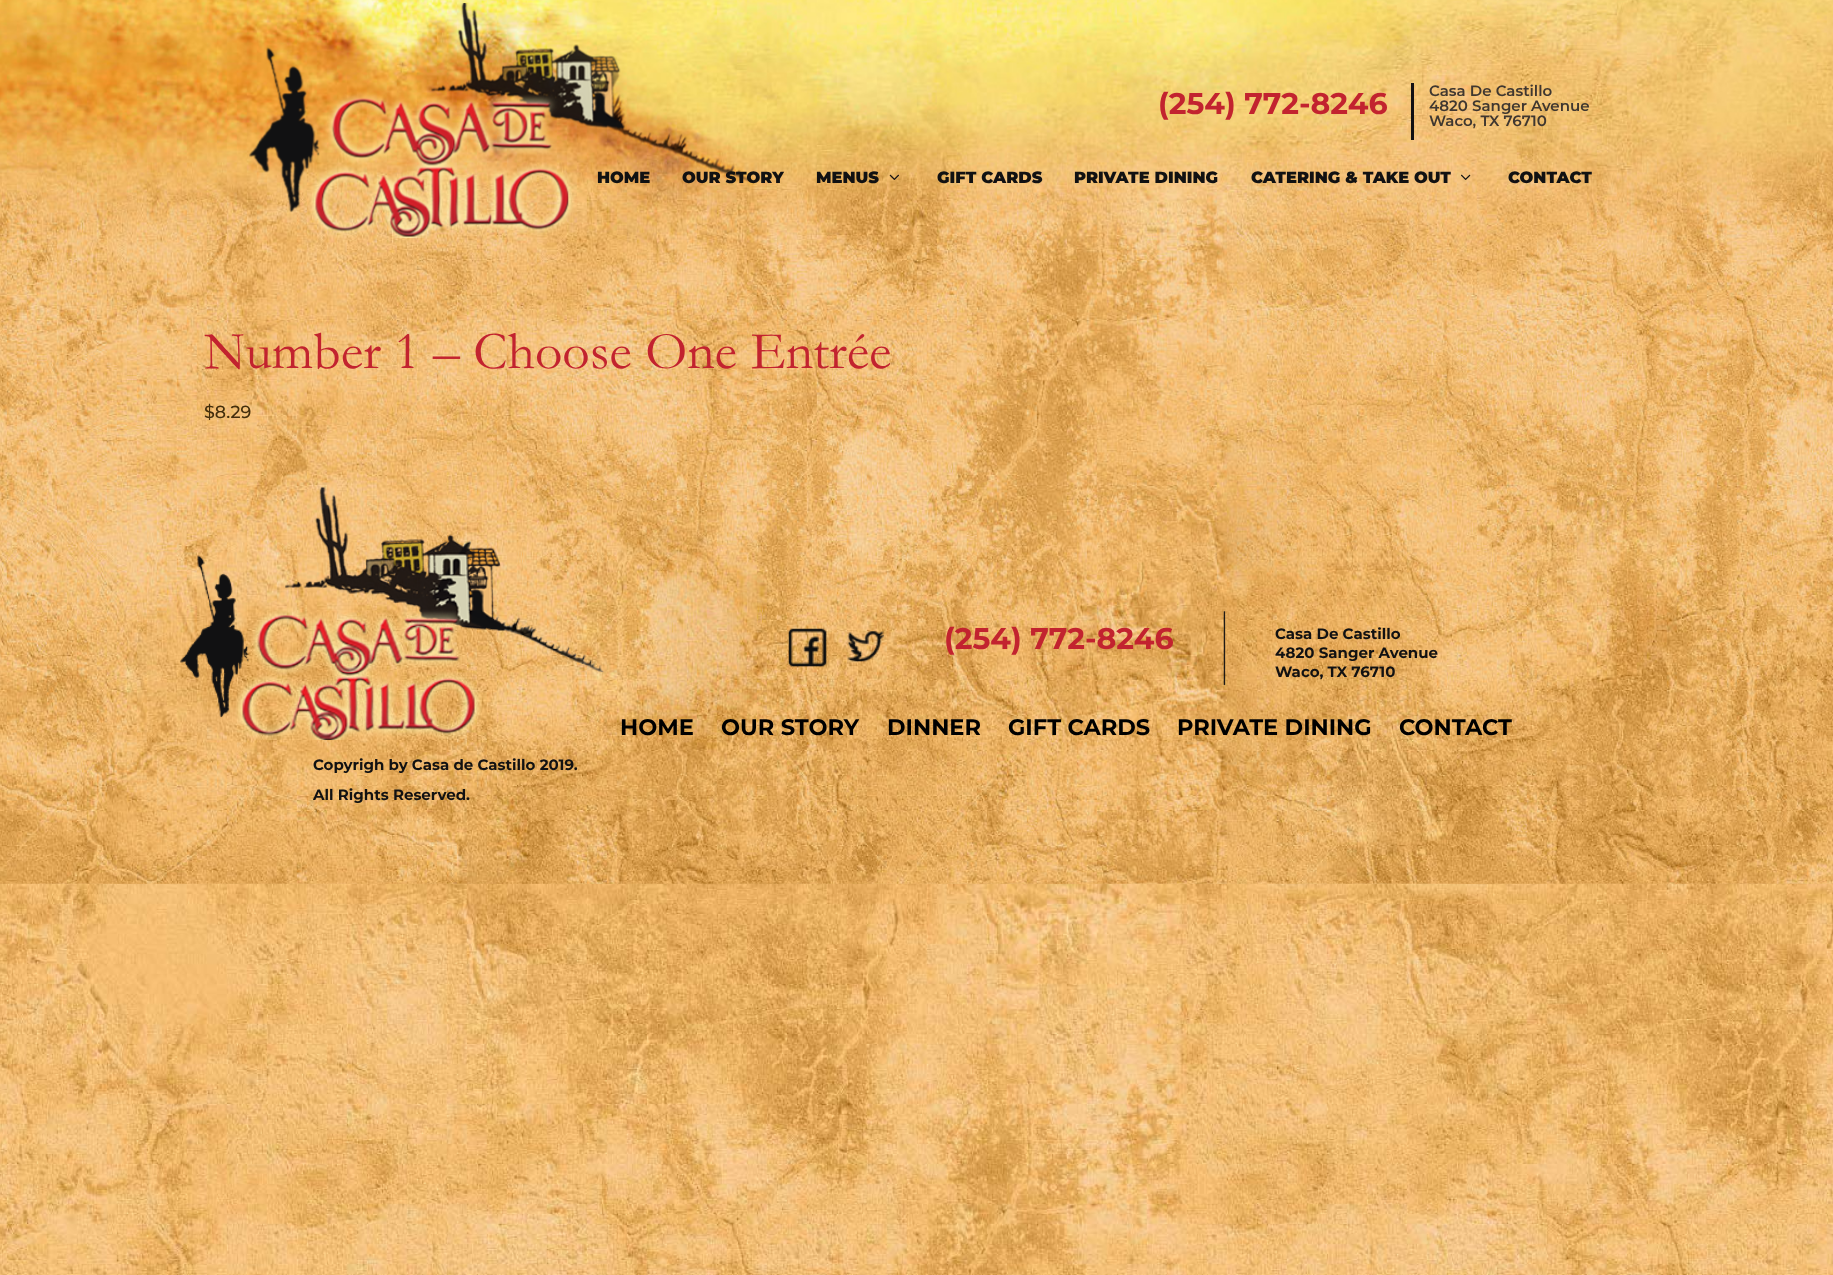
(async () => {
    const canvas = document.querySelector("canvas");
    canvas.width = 1833;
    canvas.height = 1275;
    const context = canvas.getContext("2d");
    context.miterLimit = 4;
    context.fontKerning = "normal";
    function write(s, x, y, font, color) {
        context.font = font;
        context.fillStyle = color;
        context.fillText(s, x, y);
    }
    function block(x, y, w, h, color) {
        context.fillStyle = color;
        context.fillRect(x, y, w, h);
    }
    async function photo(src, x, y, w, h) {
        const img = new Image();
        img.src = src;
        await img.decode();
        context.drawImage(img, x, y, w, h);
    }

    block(0, 0, 1833, 1275, "rgb(255, 255, 255)");
    await photo("media/1.png", 0, 883, 1833, 392);
    await photo("media/2.png", 0, 0, 1833, 884);
    write("(254) 772-8246", 1158, 114, "100 30px 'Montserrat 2'", "rgb(194, 35, 47)");
    block(1411, 83, 3, 57, "rgb(18, 16, 18)");
    write("Casa De Castillo", 1429, 96, "100 15px 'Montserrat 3'", "rgb(63, 55, 48)");
    write("4820 Sanger Avenue", 1429, 111, "100 15px 'Montserrat 3'", "rgb(63, 55, 48)");
    write("Waco, TX 76710", 1429, 126, "100 15px 'Montserrat 3'", "rgb(63, 55, 48)");
    await photo("media/3.png", 249, 3, 512, 235);
    write("HOME", 597, 183, "100 16.25px 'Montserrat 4'", "rgb(17, 17, 18)");
    write("OUR STORY", 682, 183, "100 16.25px 'Montserrat 4'", "rgb(17, 17, 18)");
    write("MENUS", 816, 183, "100 16.25px 'Montserrat 4'", "rgb(17, 17, 18)");
    await photo("media/4.png", 889, 174, 10, 6);
    write("GIFT CARDS", 937, 183, "100 16.25px 'Montserrat 4'", "rgb(17, 17, 18)");
    write("PRIVATE DINING", 1074, 183, "100 16.25px 'Montserrat 4'", "rgb(17, 17, 18)");
    write("CATERING & TAKE OUT", 1251, 183, "100 16.25px 'Montserrat 4'", "rgb(17, 17, 18)");
    await photo("media/5.png", 1461, 174, 10, 6);
    write("CONTACT", 1508, 183, "100 16.25px 'Montserrat 4'", "rgb(17, 17, 18)");
    write("Number 1 – Choose One Entrée", 204, 368, "53.75px Garamond", "rgb(194, 35, 47)");
    write("$8.29", 204, 418, "100 17.5px Montserrat", "rgb(67, 46, 12)");
    await photo("media/6.png", 788, 628, 39, 39);
    await photo("media/7.png", 847, 631, 37, 31);
    write("(254) 772-8246", 944, 649, "100 30px 'Montserrat 2'", "rgb(194, 35, 47)");
    await photo("media/8.png", 1223, 611, 3, 75);
    write("Casa De Castillo", 1275, 639, "100 15px 'Montserrat 2'", "rgb(17, 17, 18)");
    write("4820 Sanger Avenue", 1275, 658, "100 15px 'Montserrat 2'", "rgb(17, 17, 18)");
    write("Waco, TX 76710", 1275, 677, "100 15px 'Montserrat 2'", "rgb(17, 17, 18)");
    write("HOME", 620, 735, "100 22.5px 'Montserrat 2'", "rgb(0, 0, 0)");
    write("OUR STORY", 721, 735, "100 22.5px 'Montserrat 2'", "rgb(0, 0, 0)");
    write("DINNER", 887, 735, "100 22.5px 'Montserrat 2'", "rgb(0, 0, 0)");
    write("GIFT CARDS", 1008, 735, "100 22.5px 'Montserrat 2'", "rgb(0, 0, 0)");
    write("PRIVATE DINING", 1177, 735, "100 22.5px 'Montserrat 2'", "rgb(0, 0, 0)");
    write("CONTACT", 1399, 735, "100 22.5px 'Montserrat 2'", "rgb(0, 0, 0)");
    await photo("media/9.png", 180, 487, 424, 253);
    write("Copyrigh by Casa de Castillo 2019.", 313, 770, "100 15px 'Montserrat 2'", "rgb(17, 17, 18)");
    write("All Rights Reserved.", 313, 800, "100 15px 'Montserrat 2'", "rgb(17, 17, 18)");
})();
